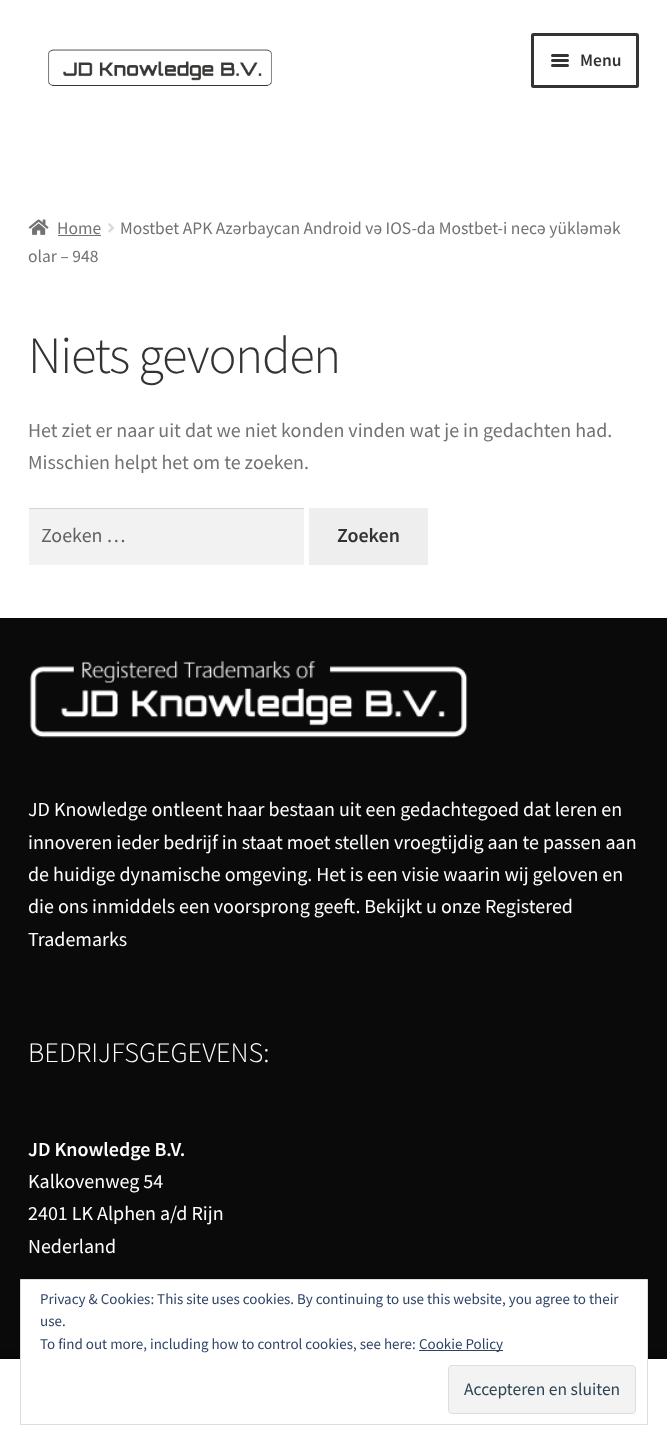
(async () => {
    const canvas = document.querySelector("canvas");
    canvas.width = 667;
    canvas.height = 1444;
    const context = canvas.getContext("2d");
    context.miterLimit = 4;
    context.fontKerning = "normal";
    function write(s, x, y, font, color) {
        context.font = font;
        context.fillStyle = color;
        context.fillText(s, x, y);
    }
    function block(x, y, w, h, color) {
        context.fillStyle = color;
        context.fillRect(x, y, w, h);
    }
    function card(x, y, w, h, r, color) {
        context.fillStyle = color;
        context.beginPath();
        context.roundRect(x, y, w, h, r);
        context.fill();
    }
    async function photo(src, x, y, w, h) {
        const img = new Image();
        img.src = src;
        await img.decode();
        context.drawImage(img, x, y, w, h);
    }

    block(0, 0, 667, 1444, "rgb(255, 255, 255)");
    await photo("media/1.png", 48, 49, 224, 37);
    context.beginPath();
    context.roundRect(532.5, 34.5, 105, 52, 1);
    context.strokeStyle = "rgb(51, 51, 51)";
    context.lineWidth = 3;
    context.stroke();
    card(551, 54, 18, 3, 1.5, "rgb(51, 51, 51)");
    card(551, 59, 18, 3, 1.5, "rgb(51, 51, 51)");
    write("Menu", 580, 66, "600 17.5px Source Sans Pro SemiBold", "rgb(51, 51, 51)");
    card(551, 64, 18, 3, 1.5, "rgb(51, 51, 51)");
    await photo("media/2.png", 28, 219, 21, 16);
    write("Home", 57, 234, "17.5px Source Sans Pro", "rgb(114, 114, 114)");
    block(58, 235, 43, 1, "rgb(114, 114, 114)");
    await photo("media/3.png", 108, 223, 7, 10);
    write("Mostbet APK Azərbaycan Android və IOS-da Mostbet-i necə yükləmək", 120, 234, "17.5px Source Sans Pro", "rgb(114, 114, 114)");
    write("olar – 948", 28, 262, "17.5px Source Sans Pro", "rgb(114, 114, 114)");
    context.letterSpacing = "-1.25px";
    write("Niets gevonden", 28, 373, "300 52.5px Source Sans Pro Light", "rgb(51, 51, 51)");
    context.letterSpacing = "0px";
    write("Het ziet er naar uit dat we niet konden vinden wat je in gedachten had.", 28, 437, "20px Source Sans Pro", "rgb(114, 114, 114)");
    write("Misschien helpt het om te zoeken.", 28, 469, "20px Source Sans Pro", "rgb(114, 114, 114)");
    block(29, 509, 275, 56, "rgb(242, 242, 242)");
    block(29, 508, 275, 1, "rgb(212, 212, 212)");
    write("Zoeken …", 41, 542, "20px Source Sans Pro", "rgb(97, 97, 97)");
    block(309, 508, 119, 57, "rgb(238, 238, 238)");
    write("Zoeken", 337, 542, "600 20px Source Sans Pro SemiBold", "rgb(51, 51, 51)");
    block(0, 618, 667, 741, "rgb(10, 10, 10)");
    await photo("media/4.png", 29, 661, 439, 77);
    write("JD Knowledge ontleent haar bestaan uit een gedachtegoed dat leren en", 28, 816, "20px Source Sans Pro", "rgb(255, 255, 255)");
    write("innoveren ieder bedrijf in staat moet stellen vroegtijdig aan te passen aan", 28, 849, "20px Source Sans Pro", "rgb(255, 255, 255)");
    write("de huidige dynamische omgeving. Het is een visie waarin wij geloven en", 28, 881, "20px Source Sans Pro", "rgb(255, 255, 255)");
    write("die ons inmiddels een voorsprong geeft. Bekijkt u onze Registered", 28, 913, "20px Source Sans Pro", "rgb(255, 255, 255)");
    write("Trademarks", 28, 946, "20px Source Sans Pro", "rgb(255, 255, 255)");
    write("BEDRIJFSGEGEVENS:", 28, 1062, "300 28.25px Source Sans Pro Light", "rgb(255, 255, 255)");
    write("JD Knowledge B.V.", 28, 1156, "600 20px Source Sans Pro SemiBold", "rgb(255, 255, 255)");
    write("Kalkovenweg 54", 28, 1188, "20px Source Sans Pro", "rgb(255, 255, 255)");
    write("2401 LK Alphen a/d Rijn", 28, 1220, "20px Source Sans Pro", "rgb(255, 255, 255)");
    write("Nederland", 28, 1253, "20px Source Sans Pro", "rgb(255, 255, 255)");
    context.fillStyle = "rgba(0, 0, 0, 0.7)";
    context.filter = "blur(4px)";
    context.beginPath();
    context.rect(0, 1359, 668, 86);
    context.fill();
    context.filter = "none";
    block(0, 1359, 667, 1, "rgb(255, 255, 255)");
    block(0, 1360, 223, 84, "rgb(255, 255, 255)");
    block(223, 1425, 222, 19, "rgb(255, 255, 255)");
    block(445, 1360, 222, 84, "rgb(255, 255, 255)");
    context.beginPath();
    context.rect(20.5, 1279.5, 627, 145);
    context.fill();
    context.strokeStyle = "rgb(222, 222, 222)";
    context.lineWidth = 1;
    context.stroke();
    write("Privacy & Cookies: This site uses cookies. By continuing to use this website, you agree to their", 40, 1304, "15px Source Sans Pro", "rgb(46, 68, 103)");
    write("use.", 40, 1326, "15px Source Sans Pro", "rgb(46, 68, 103)");
    write("To find out more, including how to control cookies, see here:", 40, 1349, "15px Source Sans Pro", "rgb(46, 68, 103)");
    block(419, 1350, 84, 1, "rgb(46, 68, 103)");
    write("Cookie Policy", 419, 1349, "15px Source Sans Pro", "rgb(46, 68, 103)");
    context.fillStyle = "rgb(243, 243, 243)";
    context.beginPath();
    context.roundRect(448.5, 1365.5, 187, 48, 3.5);
    context.fill();
    context.stroke();
    write("Accepteren en sluiten", 464, 1395, "17.5px Source Sans Pro", "rgb(46, 68, 83)");
})();
